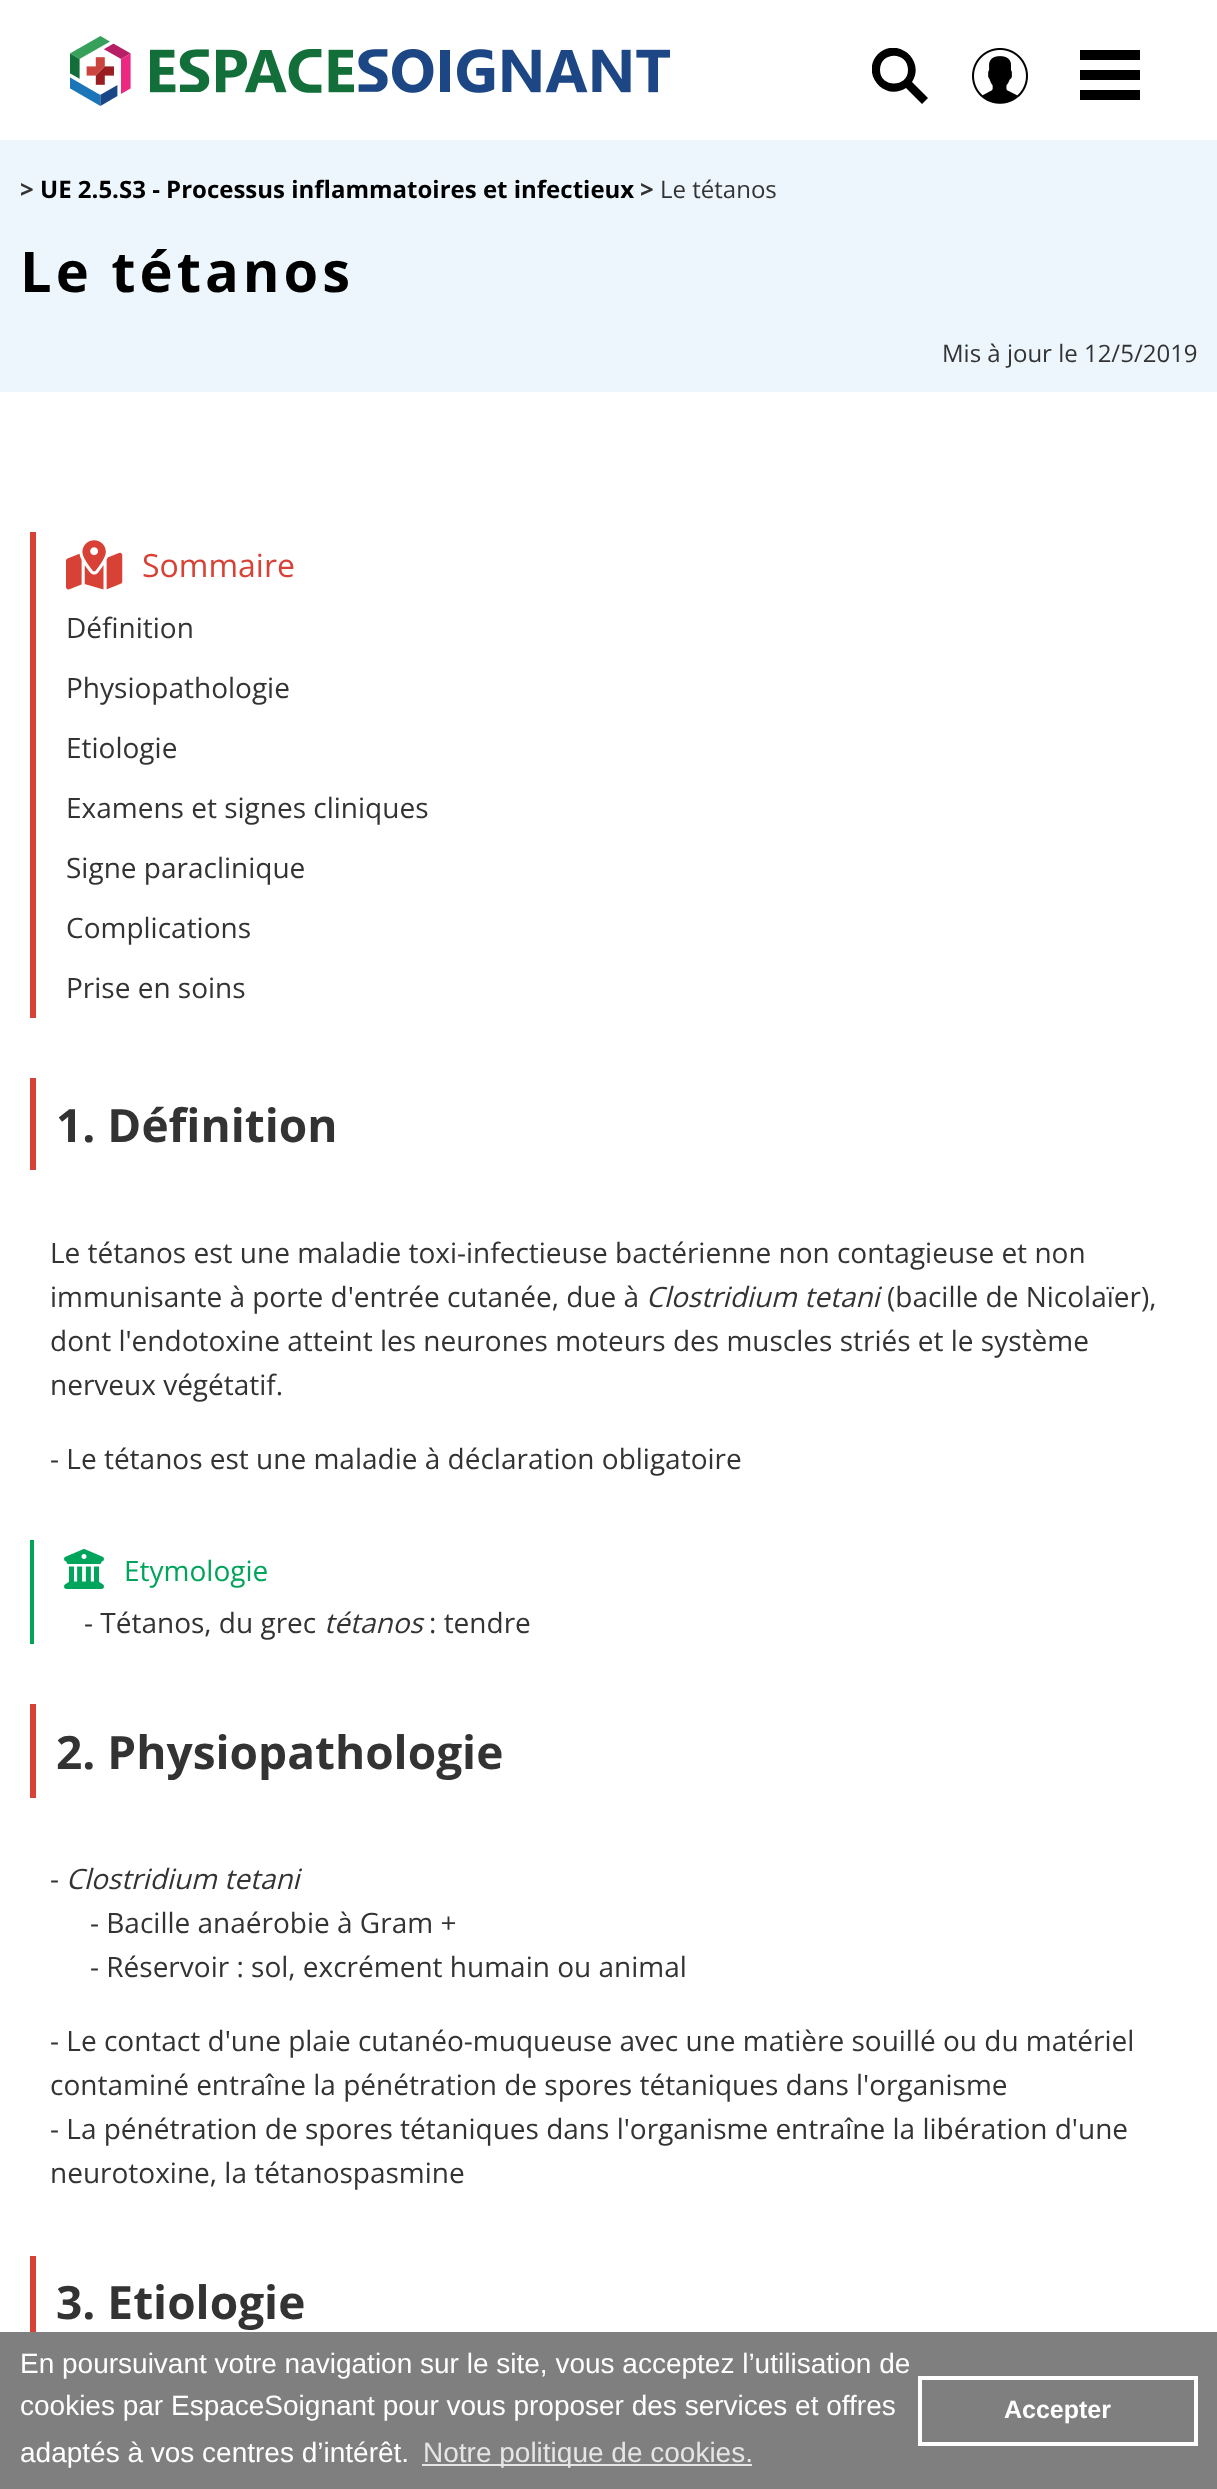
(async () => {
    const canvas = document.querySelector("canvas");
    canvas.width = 1217;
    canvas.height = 2489;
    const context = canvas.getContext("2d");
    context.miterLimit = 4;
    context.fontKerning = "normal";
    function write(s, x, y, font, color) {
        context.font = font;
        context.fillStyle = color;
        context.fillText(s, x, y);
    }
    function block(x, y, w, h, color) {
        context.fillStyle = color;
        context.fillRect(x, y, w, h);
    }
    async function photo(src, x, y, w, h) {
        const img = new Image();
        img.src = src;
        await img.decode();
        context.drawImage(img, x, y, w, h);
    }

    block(0, 0, 1217, 2489, "rgb(255, 255, 255)");
    await photo("media/1.png", 70, 36, 600, 70);
    context.save();
    context.beginPath();
    context.rect(872, 48, 56, 56);
    context.clip();
    context.fillStyle = "rgb(0, 0, 0)";
    context.beginPath();
    context.moveTo(928, 98);
    context.lineTo(912, 82);
    context.bezierCurveTo(926, 60, 897, 36, 878, 54);
    context.bezierCurveTo(860, 73, 884, 102, 906, 88);
    context.lineTo(922, 104);
    context.closePath();
    context.moveTo(880, 70);
    context.bezierCurveTo(880, 51, 908, 51, 908, 70);
    context.bezierCurveTo(908, 88, 880, 88, 880, 70);
    context.closePath();
    context.fill();
    context.restore();
    await photo("media/2.png", 972, 48, 56, 56);
    block(1080, 70, 60, 10, "rgb(0, 0, 0)");
    block(1080, 50, 60, 10, "rgb(0, 0, 0)");
    block(1080, 90, 60, 10, "rgb(0, 0, 0)");
    block(0, 140, 1217, 252, "rgb(237, 246, 253)");
    write(">", 20, 198, "bold 24px Open Sans", "rgb(51, 51, 51)");
    write("UE 2.5.S3 - Processus inflammatoires et infectieux", 40, 198, "bold 24px Open Sans", "rgb(0, 0, 0)");
    write(">", 640, 198, "bold 24px Open Sans", "rgb(51, 51, 51)");
    write("Le tétanos", 660, 198, "24px Open Sans", "rgb(51, 51, 51)");
    context.letterSpacing = "4px";
    write("Le tétanos", 20, 292, "bold 56px Open Sans", "rgb(0, 0, 0)");
    context.letterSpacing = "0px";
    write("Mis à jour le 12/5/2019", 942, 362, "24px Open Sans", "rgb(51, 51, 51)");
    block(30, 532, 6, 486, "rgb(216, 65, 54)");
    await photo("media/3.png", 66, 540, 57, 50);
    write("Sommaire", 142, 577, "32px Open Sans", "rgb(216, 65, 54)");
    write("Définition", 66, 638, "28px Open Sans", "rgb(51, 51, 51)");
    write("Physiopathologie", 66, 698, "28px Open Sans", "rgb(51, 51, 51)");
    write("Etiologie", 66, 758, "28px Open Sans", "rgb(51, 51, 51)");
    write("Examens et signes cliniques", 66, 818, "28px Open Sans", "rgb(51, 51, 51)");
    write("Signe paraclinique", 66, 878, "28px Open Sans", "rgb(51, 51, 51)");
    write("Complications", 66, 938, "28px Open Sans", "rgb(51, 51, 51)");
    write("Prise en soins", 66, 998, "28px Open Sans", "rgb(51, 51, 51)");
    block(30, 1078, 6, 92, "rgb(216, 65, 54)");
    write("1. Définition", 56, 1142, "bold 46px Open Sans", "rgb(51, 51, 51)");
    write("Le tétanos est une maladie toxi-infectieuse bactérienne non contagieuse et non", 50, 1263, "28px Open Sans", "rgb(51, 51, 51)");
    write("immunisante à porte d'entrée cutanée, due à", 50, 1307, "28px Open Sans", "rgb(51, 51, 51)");
    write("Clostridium tetani", 646, 1307, "italic 28px Open Sans", "rgb(51, 51, 51)");
    write("(bacille de Nicolaïer),", 887, 1307, "28px Open Sans", "rgb(51, 51, 51)");
    write("dont l'endotoxine atteint les neurones moteurs des muscles striés et le système", 50, 1351, "28px Open Sans", "rgb(51, 51, 51)");
    write("nerveux végétatif.", 50, 1395, "28px Open Sans", "rgb(51, 51, 51)");
    write("- Le tétanos est une maladie à déclaration obligatoire", 50, 1469, "28px Open Sans", "rgb(51, 51, 51)");
    block(30, 1540, 4, 104, "rgb(0, 165, 91)");
    await photo("media/4.png", 64, 1549, 40, 40);
    write("Etymologie", 124, 1581, "28px Open Sans", "rgb(0, 165, 91)");
    write("- Tétanos, du grec", 84, 1633, "28px Open Sans", "rgb(51, 51, 51)");
    write("tétanos", 324, 1633, "italic 28px Open Sans", "rgb(51, 51, 51)");
    write(": tendre", 429, 1633, "28px Open Sans", "rgb(51, 51, 51)");
    block(30, 1704, 6, 94, "rgb(216, 65, 54)");
    write("2. Physiopathologie", 56, 1769, "bold 46px Open Sans", "rgb(51, 51, 51)");
    write("-", 50, 1889, "28px Open Sans", "rgb(51, 51, 51)");
    write("Clostridium tetani", 66, 1889, "italic 28px Open Sans", "rgb(51, 51, 51)");
    write("- Bacille anaérobie à Gram +", 90, 1933, "28px Open Sans", "rgb(51, 51, 51)");
    write("- Réservoir : sol, excrément humain ou animal", 90, 1977, "28px Open Sans", "rgb(51, 51, 51)");
    write("- Le contact d'une plaie cutanéo-muqueuse avec une matière souillé ou du matériel", 50, 2051, "28px Open Sans", "rgb(51, 51, 51)");
    write("contaminé entraîne la pénétration de spores tétaniques dans l'organisme", 50, 2095, "28px Open Sans", "rgb(51, 51, 51)");
    write("- La pénétration de spores tétaniques dans l'organisme entraîne la libération d'une", 50, 2139, "28px Open Sans", "rgb(51, 51, 51)");
    write("neurotoxine, la tétanospasmine", 50, 2183, "28px Open Sans", "rgb(51, 51, 51)");
    block(30, 2256, 6, 76, "rgb(216, 65, 54)");
    write("3. Etiologie", 56, 2319, "bold 46px Open Sans", "rgb(51, 51, 51)");
    block(0, 2332, 1217, 157, "rgb(127, 127, 127)");
    write("En poursuivant votre navigation sur le site, vous acceptez l’utilisation de", 20, 2373, "28px Liberation Sans", "rgb(255, 255, 255)");
    write("cookies par EspaceSoignant pour vous proposer des services et offres", 20, 2415, "28px Liberation Sans", "rgb(255, 255, 255)");
    write("adaptés à vos centres d’intérêt.", 20, 2462, "28px Liberation Sans", "rgb(255, 255, 255)");
    block(422, 2464, 330, 2, "rgb(229, 229, 229)");
    write("Notre politique de cookies.", 423, 2462, "28px Liberation Sans", "rgb(229, 229, 229)");
    context.strokeStyle = "rgb(255, 255, 255)";
    context.lineWidth = 4;
    context.strokeRect(920, 2378, 276, 66);
    write("Accepter", 1004, 2418, "bold 25px Liberation Sans", "rgb(255, 255, 255)");
})();
